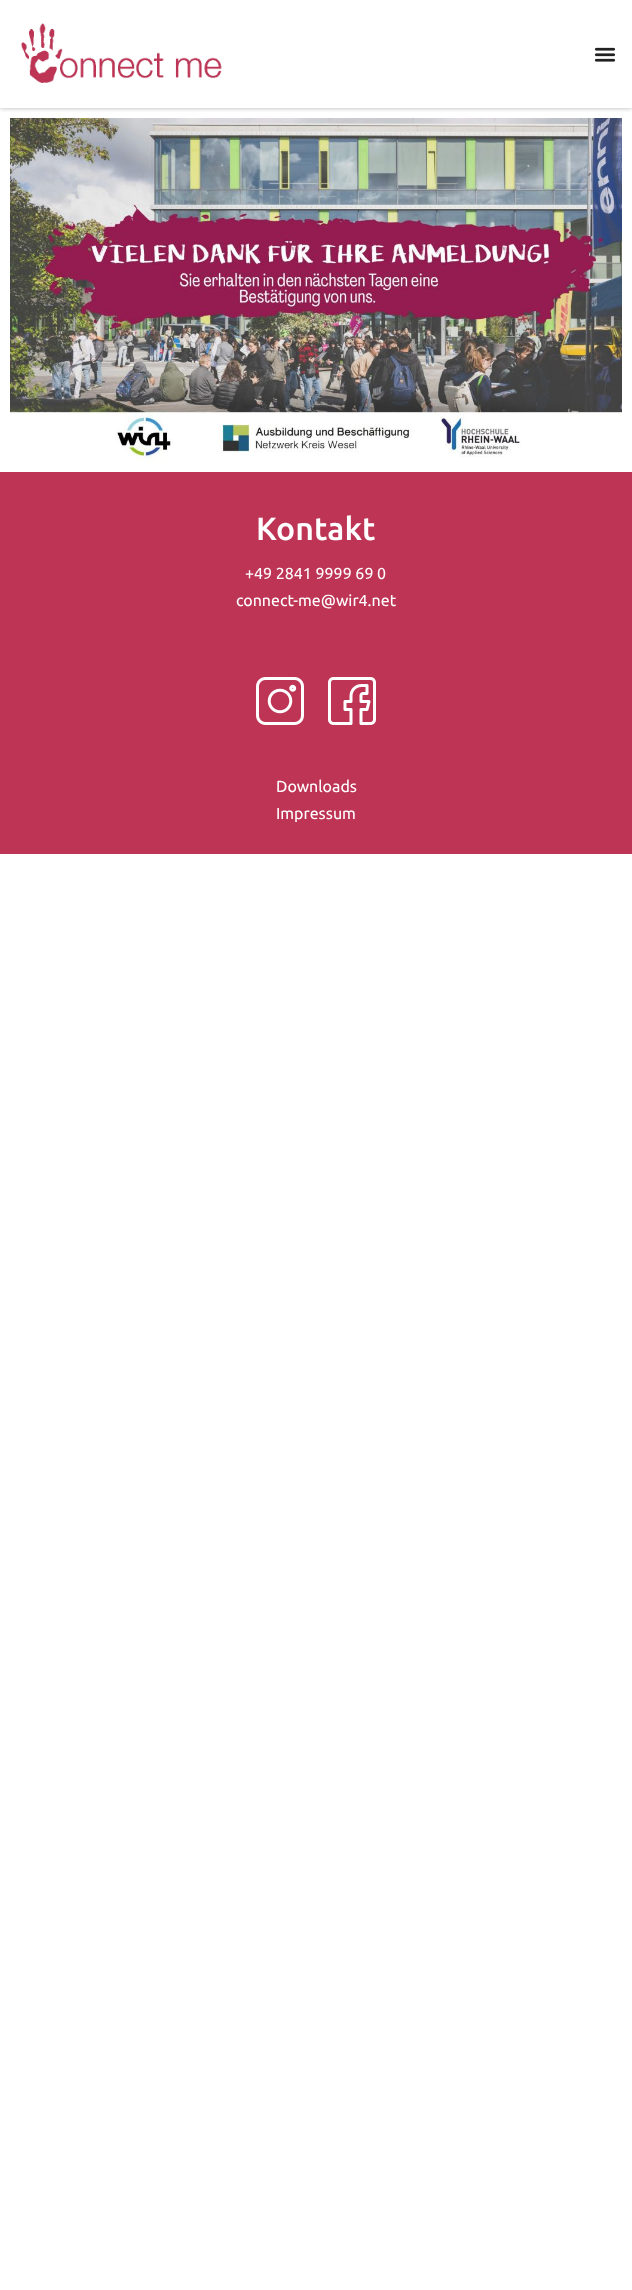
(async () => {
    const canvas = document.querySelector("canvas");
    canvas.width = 632;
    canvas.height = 2290;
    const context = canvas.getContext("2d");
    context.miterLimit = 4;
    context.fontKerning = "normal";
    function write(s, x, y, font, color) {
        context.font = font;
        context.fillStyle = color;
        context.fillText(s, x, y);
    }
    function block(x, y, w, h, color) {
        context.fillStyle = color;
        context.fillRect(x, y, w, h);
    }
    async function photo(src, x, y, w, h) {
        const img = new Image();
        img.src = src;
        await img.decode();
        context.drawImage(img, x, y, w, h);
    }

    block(0, 0, 632, 2290, "rgb(255, 255, 255)");
    context.save();
    context.beginPath();
    context.rect(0, 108, 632, 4);
    context.clip();
    context.fillStyle = "rgba(0, 0, 0, 0.3)";
    context.filter = "blur(2.5px)";
    context.beginPath();
    context.rect(0, 0, 632, 108);
    context.fill();
    context.filter = "none";
    context.restore();
    await photo("media/1.png", 21, 23, 201, 60);
    await photo("media/2.png", 594, 47, 22, 15);
    await photo("media/3.png", 10, 118, 612, 344);
    block(0, 472, 632, 382, "rgb(190, 52, 85)");
    write("Kontakt", 256, 540, "500 32px Ubuntu", "rgb(255, 255, 255)");
    write("+49 2841 9999 69 0", 245, 579, "16px Ubuntu", "rgb(255, 255, 255)");
    write("connect-me@wir4.net", 236, 606, "16px Ubuntu", "rgb(255, 255, 255)");
    await photo("media/4.png", 256, 677, 48, 48);
    await photo("media/5.png", 328, 677, 48, 48);
    write("Downloads", 276, 792, "16px Ubuntu", "rgb(255, 255, 255)");
    write("Impressum", 276, 819, "16px Ubuntu", "rgb(255, 255, 255)");
})();
